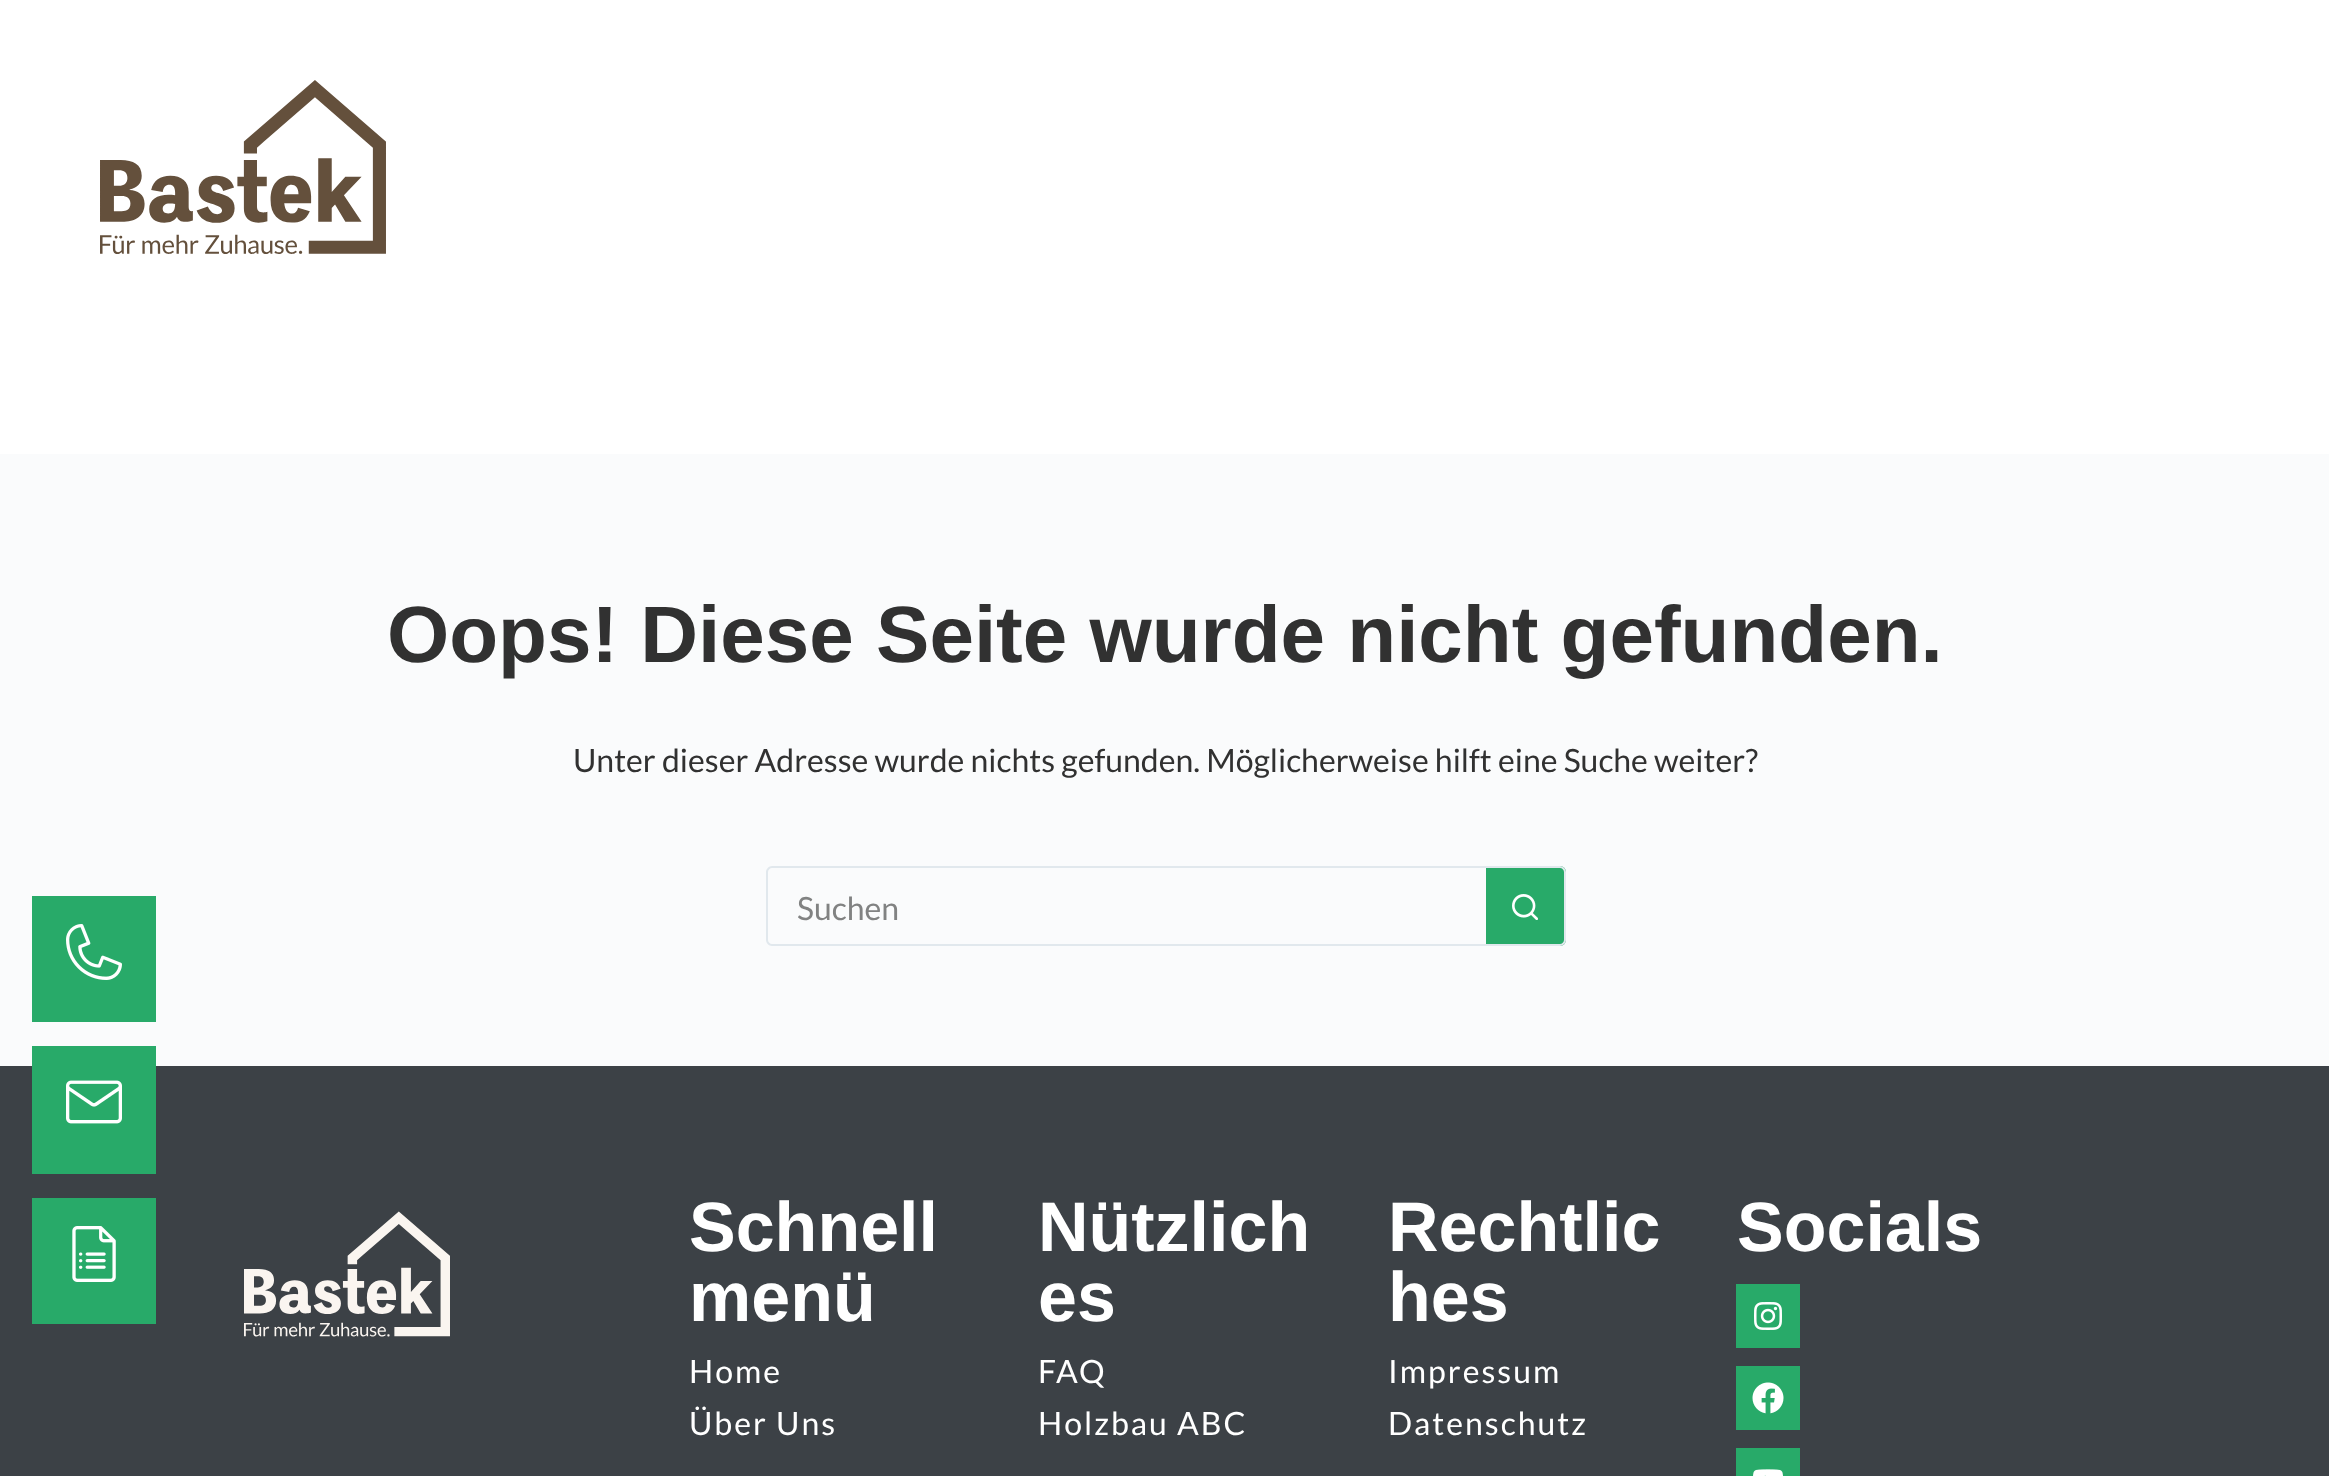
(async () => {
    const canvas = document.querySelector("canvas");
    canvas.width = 2329;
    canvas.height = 1476;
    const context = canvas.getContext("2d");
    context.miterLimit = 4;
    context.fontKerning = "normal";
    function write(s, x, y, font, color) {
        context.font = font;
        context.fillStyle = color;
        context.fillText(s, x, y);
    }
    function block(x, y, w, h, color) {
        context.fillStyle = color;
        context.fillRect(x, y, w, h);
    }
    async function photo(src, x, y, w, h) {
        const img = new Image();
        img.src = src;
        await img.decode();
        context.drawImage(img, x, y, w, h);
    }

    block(0, 0, 2329, 1476, "rgb(250, 251, 252)");
    block(0, 0, 2329, 454, "rgb(255, 255, 255)");
    block(32, 896, 124, 126, "rgb(40, 170, 105)");
    await photo("media/1.png", 66, 924, 56, 56);
    block(0, 1066, 2329, 410, "rgb(60, 65, 70)");
    block(32, 1046, 124, 128, "rgb(40, 170, 105)");
    await photo("media/2.png", 66, 1080, 56, 44);
    block(32, 1198, 124, 126, "rgb(40, 170, 105)");
    await photo("media/3.png", 72, 1226, 44, 56);
    await photo("media/4.png", 100, 80, 286, 174);
    write("Oops! Diese Seite wurde nicht gefunden.", 387, 662, "bold 80px Liberation Sans", "rgb(49, 49, 49)");
    write("Unter dieser Adresse wurde nichts gefunden. Möglicherweise hilft eine Suche weiter?", 573, 772, "32px Lato", "rgb(49, 49, 49)");
    context.fillStyle = "rgb(225, 232, 237)";
    context.beginPath();
    context.moveTo(772, 866);
    context.lineTo(1486, 866);
    context.lineTo(1486, 946);
    context.lineTo(772, 946);
    context.bezierCurveTo(769, 946, 766, 943, 766, 940);
    context.lineTo(766, 872);
    context.bezierCurveTo(766, 869, 769, 866, 772, 866);
    context.closePath();
    context.moveTo(772, 868);
    context.lineTo(1486, 868);
    context.lineTo(1486, 944);
    context.lineTo(772, 944);
    context.bezierCurveTo(770, 944, 768, 942, 768, 940);
    context.lineTo(768, 872);
    context.bezierCurveTo(768, 870, 770, 868, 772, 868);
    context.closePath();
    context.fill("evenodd");
    write("Suchen", 797, 920, "32px Lato", "rgb(129, 130, 130)");
    context.fillStyle = "rgb(40, 170, 105)";
    context.beginPath();
    context.roundRect(1486, 866, 80, 80, [0, 6, 6, 0]);
    context.fill();
    context.fillStyle = "rgb(225, 232, 237)";
    context.beginPath();
    context.moveTo(1486, 866);
    context.lineTo(1560, 866);
    context.bezierCurveTo(1563, 866, 1566, 869, 1566, 872);
    context.lineTo(1566, 940);
    context.bezierCurveTo(1566, 943, 1563, 946, 1560, 946);
    context.lineTo(1486, 946);
    context.closePath();
    context.moveTo(1486, 868);
    context.lineTo(1560, 868);
    context.bezierCurveTo(1562, 868, 1564, 870, 1564, 872);
    context.lineTo(1564, 940);
    context.bezierCurveTo(1564, 942, 1562, 944, 1560, 944);
    context.lineTo(1486, 944);
    context.closePath();
    context.fill("evenodd");
    await photo("media/5.png", 1512, 894, 26, 26);
    await photo("media/6.png", 244, 1211, 206, 126);
    write("Schnell", 689, 1251, "bold 70px Liberation Sans", "rgb(255, 255, 255)");
    write("menü", 689, 1321, "bold 70px Liberation Sans", "rgb(255, 255, 255)");
    context.letterSpacing = "2px";
    write("Home", 689, 1383, "32px Lato", "rgb(255, 255, 255)");
    write("Über Uns", 689, 1435, "32px Lato", "rgb(255, 255, 255)");
    context.letterSpacing = "0px";
    write("Nützlich", 1038, 1251, "bold 70px Liberation Sans", "rgb(255, 255, 255)");
    write("es", 1038, 1321, "bold 70px Liberation Sans", "rgb(255, 255, 255)");
    context.letterSpacing = "2px";
    write("FAQ", 1038, 1383, "32px Lato", "rgb(255, 255, 255)");
    write("Holzbau ABC", 1038, 1435, "32px Lato", "rgb(255, 255, 255)");
    context.letterSpacing = "0px";
    write("Rechtlic", 1388, 1251, "bold 70px Liberation Sans", "rgb(255, 255, 255)");
    write("hes", 1388, 1321, "bold 70px Liberation Sans", "rgb(255, 255, 255)");
    context.letterSpacing = "2px";
    write("Impressum", 1388, 1383, "32px Lato", "rgb(255, 255, 255)");
    write("Datenschutz", 1388, 1435, "32px Lato", "rgb(255, 255, 255)");
    context.letterSpacing = "0px";
    write("Socials", 1737, 1251, "bold 70px Liberation Sans", "rgb(255, 255, 255)");
    block(1736, 1284, 64, 64, "rgb(40, 170, 105)");
    await photo("media/7.png", 1754, 1302, 28, 28);
    block(1736, 1366, 64, 64, "rgb(40, 170, 105)");
    await photo("media/8.png", 1752, 1382, 32, 32);
    block(1736, 1448, 64, 28, "rgb(40, 170, 105)");
    await photo("media/9.png", 1753, 1469, 30, 7);
})();
